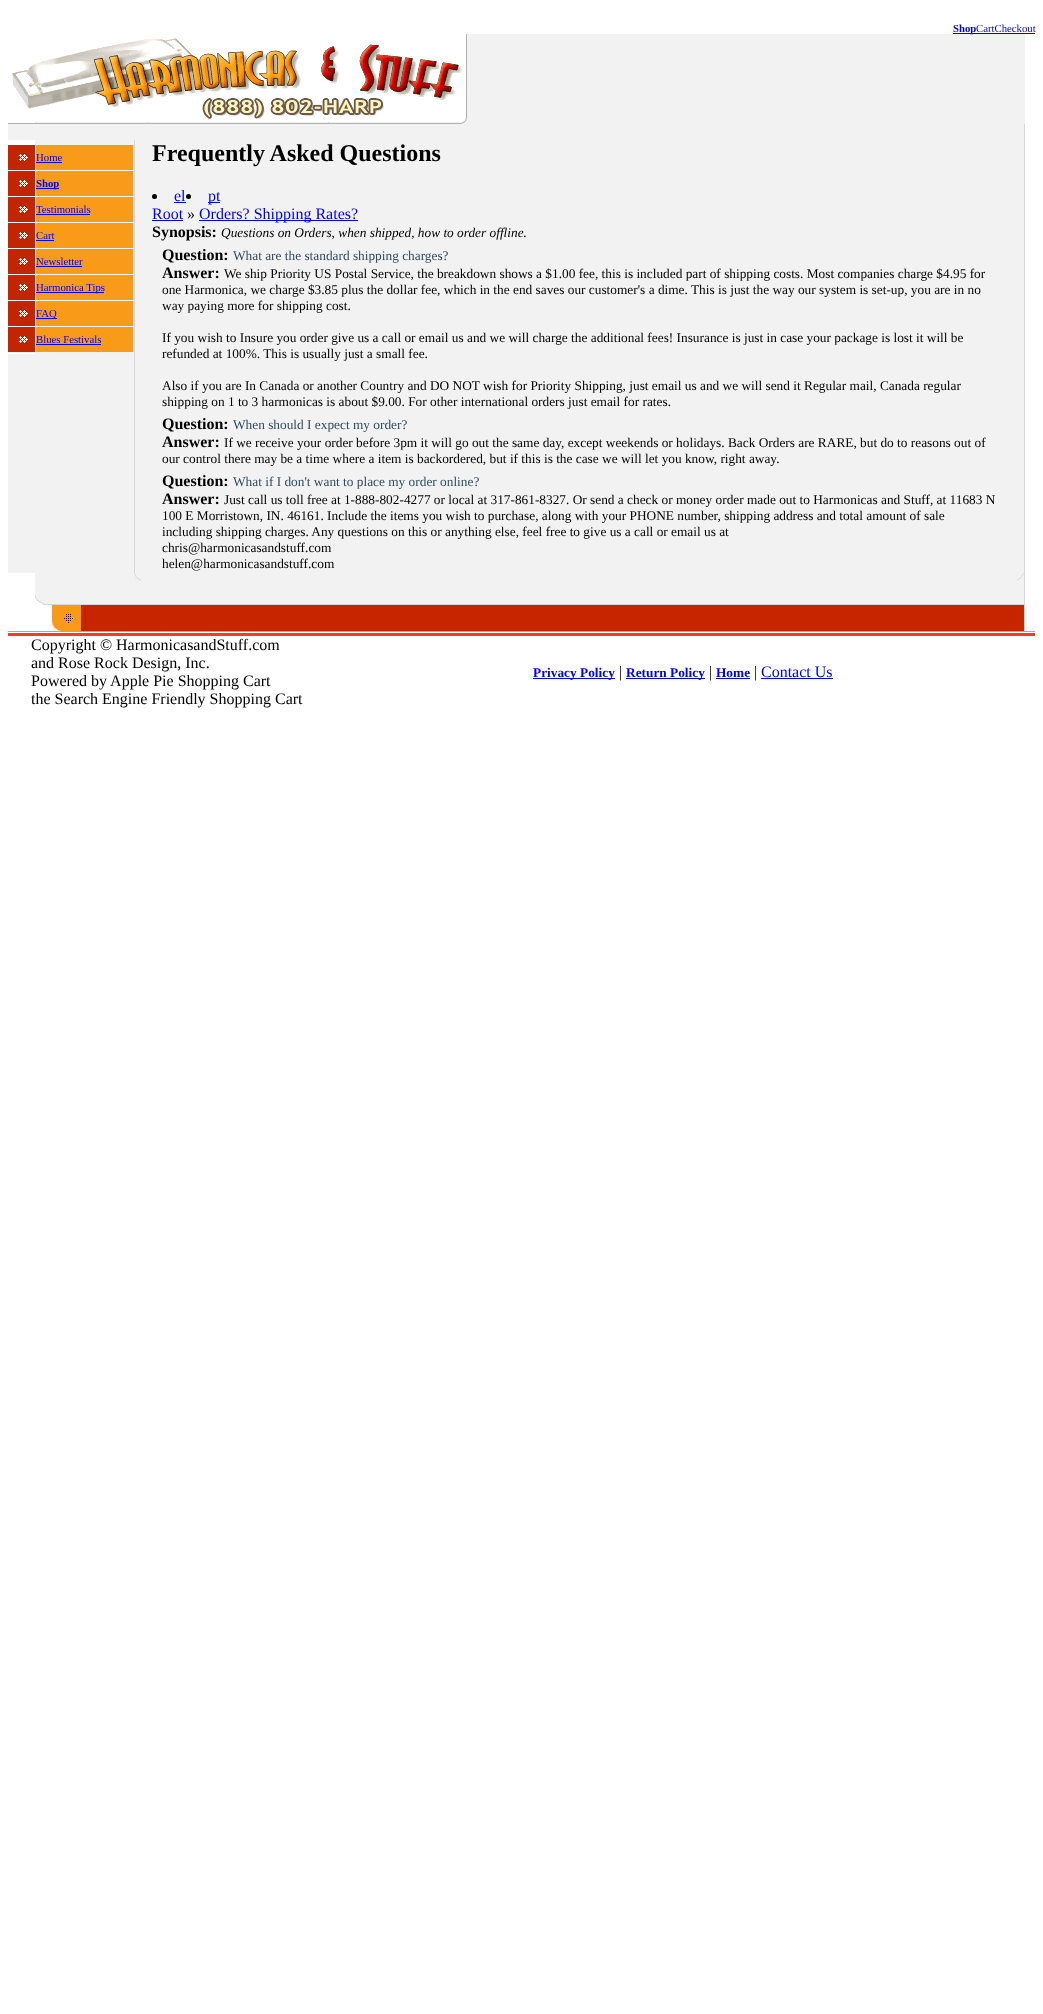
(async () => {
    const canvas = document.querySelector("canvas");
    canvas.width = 1043;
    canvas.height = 2014;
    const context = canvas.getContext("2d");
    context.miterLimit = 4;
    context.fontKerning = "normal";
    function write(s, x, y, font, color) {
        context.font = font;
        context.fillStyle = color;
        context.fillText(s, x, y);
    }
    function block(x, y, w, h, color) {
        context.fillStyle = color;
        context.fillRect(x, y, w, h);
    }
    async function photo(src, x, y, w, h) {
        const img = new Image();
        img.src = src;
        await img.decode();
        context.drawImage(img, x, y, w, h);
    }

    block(0, 0, 1043, 2014, "rgb(255, 255, 255)");
    block(953, 33, 82, 1, "rgb(0, 0, 238)");
    block(8, 34, 1017, 106, "rgb(242, 242, 242)");
    write("Shop", 953, 32, "bold 10.75px Liberation Serif", "rgb(0, 0, 238)");
    write("CartCheckout", 976, 32, "10.75px Liberation Serif", "rgb(0, 0, 238)");
    await photo("media/1.png", 8, 34, 459, 90);
    block(1024, 124, 1, 480, "rgb(216, 216, 216)");
    block(8, 140, 1016, 464, "rgb(242, 242, 242)");
    block(8, 140, 27, 5, "rgb(255, 255, 255)");
    await photo("media/2.png", 8, 145, 27, 25);
    block(35, 145, 1, 25, "rgb(216, 216, 216)");
    block(36, 145, 97, 25, "rgb(249, 155, 24)");
    write("Home", 36, 161, "10.75px Liberation Serif", "rgb(0, 0, 238)");
    block(36, 162, 26, 1, "rgb(0, 0, 238)");
    block(133, 145, 1, 25, "rgb(216, 216, 216)");
    await photo("media/2.png", 8, 171, 27, 25);
    block(35, 171, 1, 25, "rgb(216, 216, 216)");
    block(36, 171, 97, 25, "rgb(249, 155, 24)");
    block(36, 188, 23, 1, "rgb(0, 0, 238)");
    write("Shop", 36, 187, "bold 10.75px Liberation Serif", "rgb(0, 0, 238)");
    block(133, 171, 1, 25, "rgb(216, 216, 216)");
    await photo("media/2.png", 8, 197, 27, 25);
    block(35, 197, 1, 25, "rgb(216, 216, 216)");
    block(36, 197, 97, 25, "rgb(249, 155, 24)");
    write("Testimonials", 36, 213, "10.75px Liberation Serif", "rgb(0, 0, 238)");
    block(36, 214, 54, 1, "rgb(0, 0, 238)");
    block(133, 197, 1, 25, "rgb(216, 216, 216)");
    await photo("media/2.png", 8, 223, 27, 25);
    block(35, 223, 1, 25, "rgb(216, 216, 216)");
    block(36, 223, 97, 25, "rgb(249, 155, 24)");
    write("Cart", 36, 239, "10.75px Liberation Serif", "rgb(0, 0, 238)");
    block(36, 240, 18, 1, "rgb(0, 0, 238)");
    block(133, 223, 1, 25, "rgb(216, 216, 216)");
    await photo("media/2.png", 8, 249, 27, 25);
    block(35, 249, 1, 25, "rgb(216, 216, 216)");
    block(36, 249, 97, 25, "rgb(249, 155, 24)");
    write("Newsletter", 36, 265, "10.75px Liberation Serif", "rgb(0, 0, 238)");
    block(36, 266, 46, 1, "rgb(0, 0, 238)");
    block(133, 249, 1, 25, "rgb(216, 216, 216)");
    await photo("media/2.png", 8, 275, 27, 25);
    block(35, 275, 1, 25, "rgb(216, 216, 216)");
    block(36, 275, 97, 25, "rgb(249, 155, 24)");
    block(36, 292, 68, 1, "rgb(0, 0, 238)");
    write("Harmonica Tips", 36, 291, "10.75px Liberation Serif", "rgb(0, 0, 238)");
    block(133, 275, 1, 25, "rgb(216, 216, 216)");
    await photo("media/2.png", 8, 301, 27, 25);
    block(35, 301, 1, 25, "rgb(216, 216, 216)");
    block(36, 301, 97, 25, "rgb(249, 155, 24)");
    block(36, 318, 21, 1, "rgb(0, 0, 238)");
    write("FAQ", 36, 317, "10.75px Liberation Serif", "rgb(0, 0, 238)");
    block(133, 301, 1, 25, "rgb(216, 216, 216)");
    await photo("media/2.png", 8, 327, 27, 25);
    block(35, 327, 1, 25, "rgb(216, 216, 216)");
    block(36, 327, 97, 25, "rgb(249, 155, 24)");
    write("Blues Festivals", 36, 343, "10.75px Liberation Serif", "rgb(0, 0, 238)");
    block(36, 344, 65, 1, "rgb(0, 0, 238)");
    block(133, 327, 1, 25, "rgb(216, 216, 216)");
    block(8, 353, 27, 1, "rgb(255, 255, 255)");
    block(134, 140, 1, 433, "rgb(216, 216, 216)");
    write("Frequently Asked Questions", 152, 161, "bold 24px Liberation Serif", "rgb(0, 0, 0)");
    context.beginPath();
    context.arc(154.5, 196.5, 2.5, 0, Math.PI * 2);
    context.fill();
    write("el", 174, 201, "16px Liberation Serif", "rgb(0, 0, 238)");
    block(174, 202, 12, 1, "rgb(0, 0, 238)");
    context.fillStyle = "rgb(0, 0, 0)";
    context.beginPath();
    context.arc(188.5, 196.5, 2.5, 0, Math.PI * 2);
    context.fill();
    block(208, 202, 12, 1, "rgb(0, 0, 238)");
    write("pt", 208, 201, "16px Liberation Serif", "rgb(0, 0, 238)");
    write("Root", 152, 219, "16px Liberation Serif", "rgb(0, 0, 238)");
    block(152, 220, 31, 1, "rgb(0, 0, 238)");
    write("»", 187, 219, "16px Liberation Serif", "rgb(0, 0, 0)");
    block(199, 220, 159, 1, "rgb(0, 0, 238)");
    write("Orders? Shipping Rates?", 199, 219, "16px Liberation Serif", "rgb(0, 0, 238)");
    write("Synopsis:", 152, 237, "bold 16px Liberation Serif", "rgb(0, 0, 0)");
    write("Questions on Orders, when shipped, how to order offline.", 221, 237, "italic 13.33px Liberation Serif", "rgb(0, 0, 0)");
    write("Question:", 162, 260, "bold 16px Liberation Serif", "rgb(0, 0, 0)");
    write("What are the standard shipping charges?", 233, 260, "13.33px Liberation Serif", "rgb(50, 75, 96)");
    write("Answer:", 162, 278, "bold 16px Liberation Serif", "rgb(0, 0, 0)");
    write("We ship Priority US Postal Service, the breakdown shows a $1.00 fee, this is included part of shipping costs. Most companies charge $4.95 for", 224, 278, "13.33px Liberation Serif", "rgb(0, 0, 0)");
    write("one Harmonica, we charge $3.85 plus the dollar fee, which in the end saves our customer's a dime. This is just the way our system is set-up, you are in no", 162, 294, "13.33px Liberation Serif", "rgb(0, 0, 0)");
    write("way paying more for shipping cost.", 162, 310, "13.33px Liberation Serif", "rgb(0, 0, 0)");
    write("If you wish to Insure you order give us a call or email us and we will charge the additional fees! Insurance is just in case your package is lost it will be", 162, 342, "13.33px Liberation Serif", "rgb(0, 0, 0)");
    write("refunded at 100%. This is usually just a small fee.", 162, 358, "13.33px Liberation Serif", "rgb(0, 0, 0)");
    write("Also if you are In Canada or another Country and DO NOT wish for Priority Shipping, just email us and we will send it Regular mail, Canada regular", 162, 390, "13.33px Liberation Serif", "rgb(0, 0, 0)");
    write("shipping on 1 to 3 harmonicas is about $9.00. For other international orders just email for rates.", 162, 406, "13.33px Liberation Serif", "rgb(0, 0, 0)");
    write("Question:", 162, 429, "bold 16px Liberation Serif", "rgb(0, 0, 0)");
    write("When should I expect my order?", 233, 429, "13.33px Liberation Serif", "rgb(50, 75, 96)");
    write("Answer:", 162, 447, "bold 16px Liberation Serif", "rgb(0, 0, 0)");
    write("If we receive your order before 3pm it will go out the same day, except weekends or holidays. Back Orders are RARE, but do to reasons out of", 224, 447, "13.33px Liberation Serif", "rgb(0, 0, 0)");
    write("our control there may be a time where a item is backordered, but if this is the case we will let you know, right away.", 162, 463, "13.33px Liberation Serif", "rgb(0, 0, 0)");
    write("Question:", 162, 486, "bold 16px Liberation Serif", "rgb(0, 0, 0)");
    write("What if I don't want to place my order online?", 233, 486, "13.33px Liberation Serif", "rgb(50, 75, 96)");
    write("Answer:", 162, 504, "bold 16px Liberation Serif", "rgb(0, 0, 0)");
    write("Just call us toll free at 1-888-802-4277 or local at 317-861-8327. Or send a check or money order made out to Harmonicas and Stuff, at 11683 N", 224, 504, "13.33px Liberation Serif", "rgb(0, 0, 0)");
    write("100 E Morristown, IN. 46161. Include the items you wish to purchase, along with your PHONE number, shipping address and total amount of sale", 162, 520, "13.33px Liberation Serif", "rgb(0, 0, 0)");
    write("including shipping charges. Any questions on this or anything else, feel free to give us a call or email us at", 162, 536, "13.33px Liberation Serif", "rgb(0, 0, 0)");
    write("chris@harmonicasandstuff.com", 162, 552, "13.33px Liberation Serif", "rgb(0, 0, 0)");
    write("helen@harmonicasandstuff.com", 162, 568, "13.33px Liberation Serif", "rgb(0, 0, 0)");
    block(8, 573, 27, 31, "rgb(255, 255, 255)");
    await photo("media/3.png", 35, 595, 9, 9);
    await photo("media/4.png", 134, 573, 7, 8);
    await photo("media/5.png", 1017, 573, 7, 8);
    block(43, 604, 982, 1, "rgb(216, 216, 216)");
    await photo("media/6.png", 52, 605, 29, 26);
    block(81, 605, 943, 26, "rgb(199, 37, 0)");
    block(1024, 605, 1, 26, "rgb(216, 216, 216)");
    block(8, 631, 1027, 1, "rgb(249, 155, 24)");
    block(8, 633, 1027, 3, "rgb(242, 63, 23)");
    write("Copyright © HarmonicasandStuff.com", 31, 650, "16px Liberation Serif", "rgb(0, 0, 0)");
    write("and Rose Rock Design, Inc.", 31, 668, "16px Liberation Serif", "rgb(0, 0, 0)");
    write("Powered by Apple Pie Shopping Cart", 31, 686, "16px Liberation Serif", "rgb(0, 0, 0)");
    write("the Search Engine Friendly Shopping Cart", 31, 704, "16px Liberation Serif", "rgb(0, 0, 0)");
    block(533, 678, 82, 1, "rgb(0, 0, 238)");
    write("Privacy Policy", 533, 677, "bold 13.33px Liberation Serif", "rgb(0, 0, 238)");
    write("|", 619, 677, "16px Liberation Serif", "rgb(0, 0, 0)");
    block(626, 678, 79, 1, "rgb(0, 0, 238)");
    write("Return Policy", 626, 677, "bold 13.33px Liberation Serif", "rgb(0, 0, 238)");
    write("|", 709, 677, "16px Liberation Serif", "rgb(0, 0, 0)");
    write("Home", 716, 677, "bold 13.33px Liberation Serif", "rgb(0, 0, 238)");
    block(716, 678, 34, 1, "rgb(0, 0, 238)");
    write("|", 754, 677, "16px Liberation Serif", "rgb(0, 0, 0)");
    write("Contact Us", 761, 677, "16px Liberation Serif", "rgb(0, 0, 238)");
    block(761, 678, 72, 1, "rgb(0, 0, 238)");
})();
